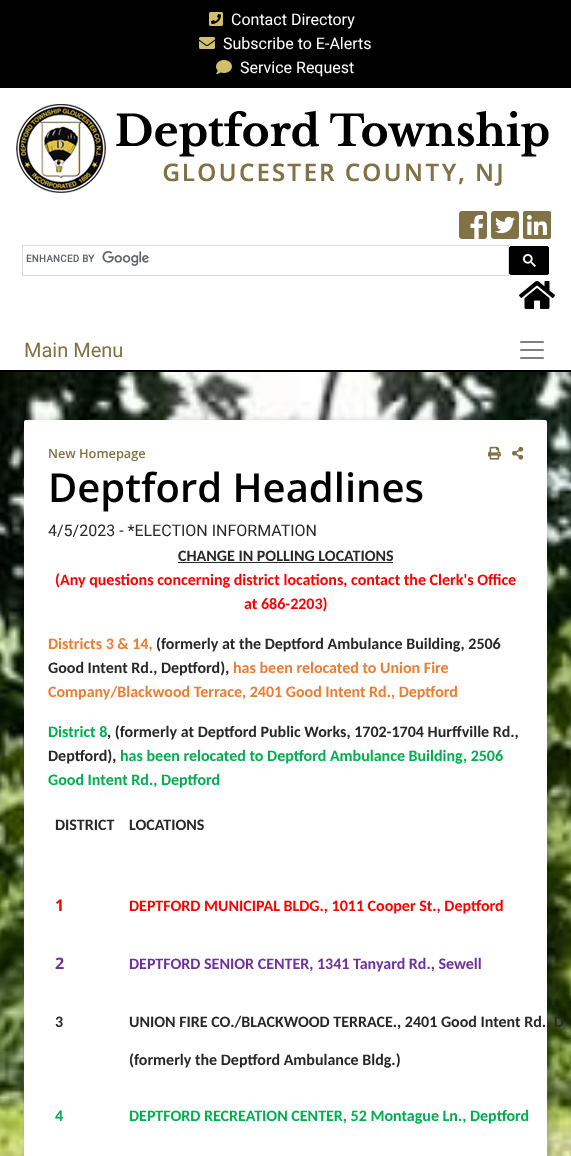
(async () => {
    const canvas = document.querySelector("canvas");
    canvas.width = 571;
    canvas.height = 1156;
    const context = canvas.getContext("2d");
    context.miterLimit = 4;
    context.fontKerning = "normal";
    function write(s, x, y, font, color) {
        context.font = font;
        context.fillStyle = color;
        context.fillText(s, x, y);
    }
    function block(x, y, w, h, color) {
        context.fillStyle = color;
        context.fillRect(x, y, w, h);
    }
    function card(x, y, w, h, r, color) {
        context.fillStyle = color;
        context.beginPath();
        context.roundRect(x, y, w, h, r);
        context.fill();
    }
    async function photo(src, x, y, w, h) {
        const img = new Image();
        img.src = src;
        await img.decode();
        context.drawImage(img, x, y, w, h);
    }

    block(0, 0, 571, 1156, "rgb(255, 255, 255)");
    block(0, 0, 571, 88, "rgb(0, 0, 0)");
    await photo("media/1.png", 209, 12, 14, 14);
    write("Contact Directory", 231, 25, "16px Roboto", "rgb(255, 255, 255)");
    await photo("media/2.png", 199, 37, 16, 12);
    write("Subscribe to E-Alerts", 223, 49, "16px Roboto", "rgb(255, 255, 255)");
    await photo("media/3.png", 216, 60, 16, 14);
    write("Service Request", 240, 73, "16px Roboto", "rgb(255, 255, 255)");
    await photo("media/4.png", 16, 104, 533, 89);
    await photo("media/5.png", 459, 211, 28, 28);
    await photo("media/6.png", 491, 211, 28, 28);
    await photo("media/7.png", 523, 211, 28, 28);
    context.strokeStyle = "rgb(217, 217, 217)";
    context.strokeRect(22.5, 245.5, 486, 30);
    await photo("media/8.png", 26, 251, 123, 15);
    context.fillStyle = "rgb(0, 0, 0)";
    context.beginPath();
    context.roundRect(509.5, 246.5, 39, 28, 1.5);
    context.fill();
    context.strokeStyle = "rgb(0, 0, 0)";
    context.stroke();
    await photo("media/9.png", 523, 254, 13, 13);
    await photo("media/10.png", 519, 281, 36, 28);
    block(0, 370, 571, 2, "rgb(0, 0, 0)");
    write("Main Menu", 24, 357, "20px Roboto", "rgb(129, 114, 70)");
    await photo("media/11.png", 520, 341, 24, 18);
    await photo("media/12.png", 0, 372, 571, 784);
    context.fillStyle = "rgba(0, 0, 0, 0.16)";
    context.filter = "blur(3px)";
    context.beginPath();
    context.roundRect(29, 420, 523, 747, 2);
    context.fill();
    context.filter = "none";
    card(24, 420, 523, 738, 2, "rgb(255, 255, 255)");
    write("New Homepage", 48, 458, "600 12.75px Open Sans", "rgb(129, 114, 70)");
    await photo("media/13.png", 488, 446, 13, 14);
    await photo("media/14.png", 512, 446, 12, 14);
    write("Deptford Headlines", 48, 502, "600 40px Open Sans", "rgb(0, 0, 0)");
    write("4/5/2023 - *ELECTION INFORMATION", 48, 536, "16px Roboto", "rgb(40, 40, 40)");
    write("CHANGE IN POLLING LOCATIONS", 178, 561, "bold 16px Carlito", "rgb(40, 40, 40)");
    block(178, 562, 215, 1, "rgb(40, 40, 40)");
    write("(Any questions concerning district locations, contact the Clerk's Office", 55, 585, "bold 16px Carlito", "rgb(255, 0, 0)");
    write("at 686-2203)", 244, 609, "bold 16px Carlito", "rgb(255, 0, 0)");
    write("Districts 3 & 14,", 48, 649, "bold 16px Carlito", "rgb(237, 125, 49)");
    write("(formerly at the Deptford Ambulance Building, 2506", 156, 649, "bold 16px Carlito", "rgb(40, 40, 40)");
    write("Good Intent Rd., Deptford),", 48, 673, "bold 16px Carlito", "rgb(40, 40, 40)");
    write("has been relocated to Union Fire", 233, 673, "bold 16px Carlito", "rgb(237, 125, 49)");
    write("Company/Blackwood Terrace, 2401 Good Intent Rd., Deptford", 48, 697, "bold 16px Carlito", "rgb(237, 125, 49)");
    write("District 8", 48, 737, "bold 16px Carlito", "rgb(0, 176, 80)");
    write(", (formerly at Deptford Public Works, 1702-1704 Hurffville Rd.,", 107, 737, "bold 16px Carlito", "rgb(40, 40, 40)");
    write("Deptford),", 48, 761, "bold 16px Carlito", "rgb(40, 40, 40)");
    write("has been relocated to Deptford Ambulance Building, 2506", 120, 761, "bold 16px Carlito", "rgb(0, 176, 80)");
    write("Good Intent Rd., Deptford", 48, 785, "bold 16px Carlito", "rgb(0, 176, 80)");
    write("DISTRICT", 55, 830, "bold 16px Carlito", "rgb(40, 40, 40)");
    write("LOCATIONS", 129, 830, "bold 16px Carlito", "rgb(40, 40, 40)");
    write("1", 55, 911, "bold 16px Open Sans", "rgb(255, 0, 0)");
    write("DEPTFORD MUNICIPAL BLDG., 1011 Cooper St., Deptford", 129, 911, "bold 16px Carlito", "rgb(255, 0, 0)");
    write("2", 55, 969, "bold 16px Open Sans", "rgb(112, 48, 160)");
    write("DEPTFORD SENIOR CENTER, 1341 Tanyard Rd., Sewell", 129, 969, "bold 16px Carlito", "rgb(112, 48, 160)");
    write("3", 55, 1027, "bold 16px Carlito", "rgb(40, 40, 40)");
    write("UNION FIRE CO./BLACKWOOD TERRACE., 2401 Good Intent Rd., D", 129, 1027, "bold 16px Carlito", "rgb(40, 40, 40)");
    write("(formerly the Deptford Ambulance Bldg.)", 129, 1065, "bold 16px Carlito", "rgb(40, 40, 40)");
    write("4", 55, 1121, "bold 16px Carlito", "rgb(0, 176, 80)");
    write("DEPTFORD RECREATION CENTER, 52 Montague Ln., Deptford", 129, 1121, "bold 16px Carlito", "rgb(0, 176, 80)");
})();
